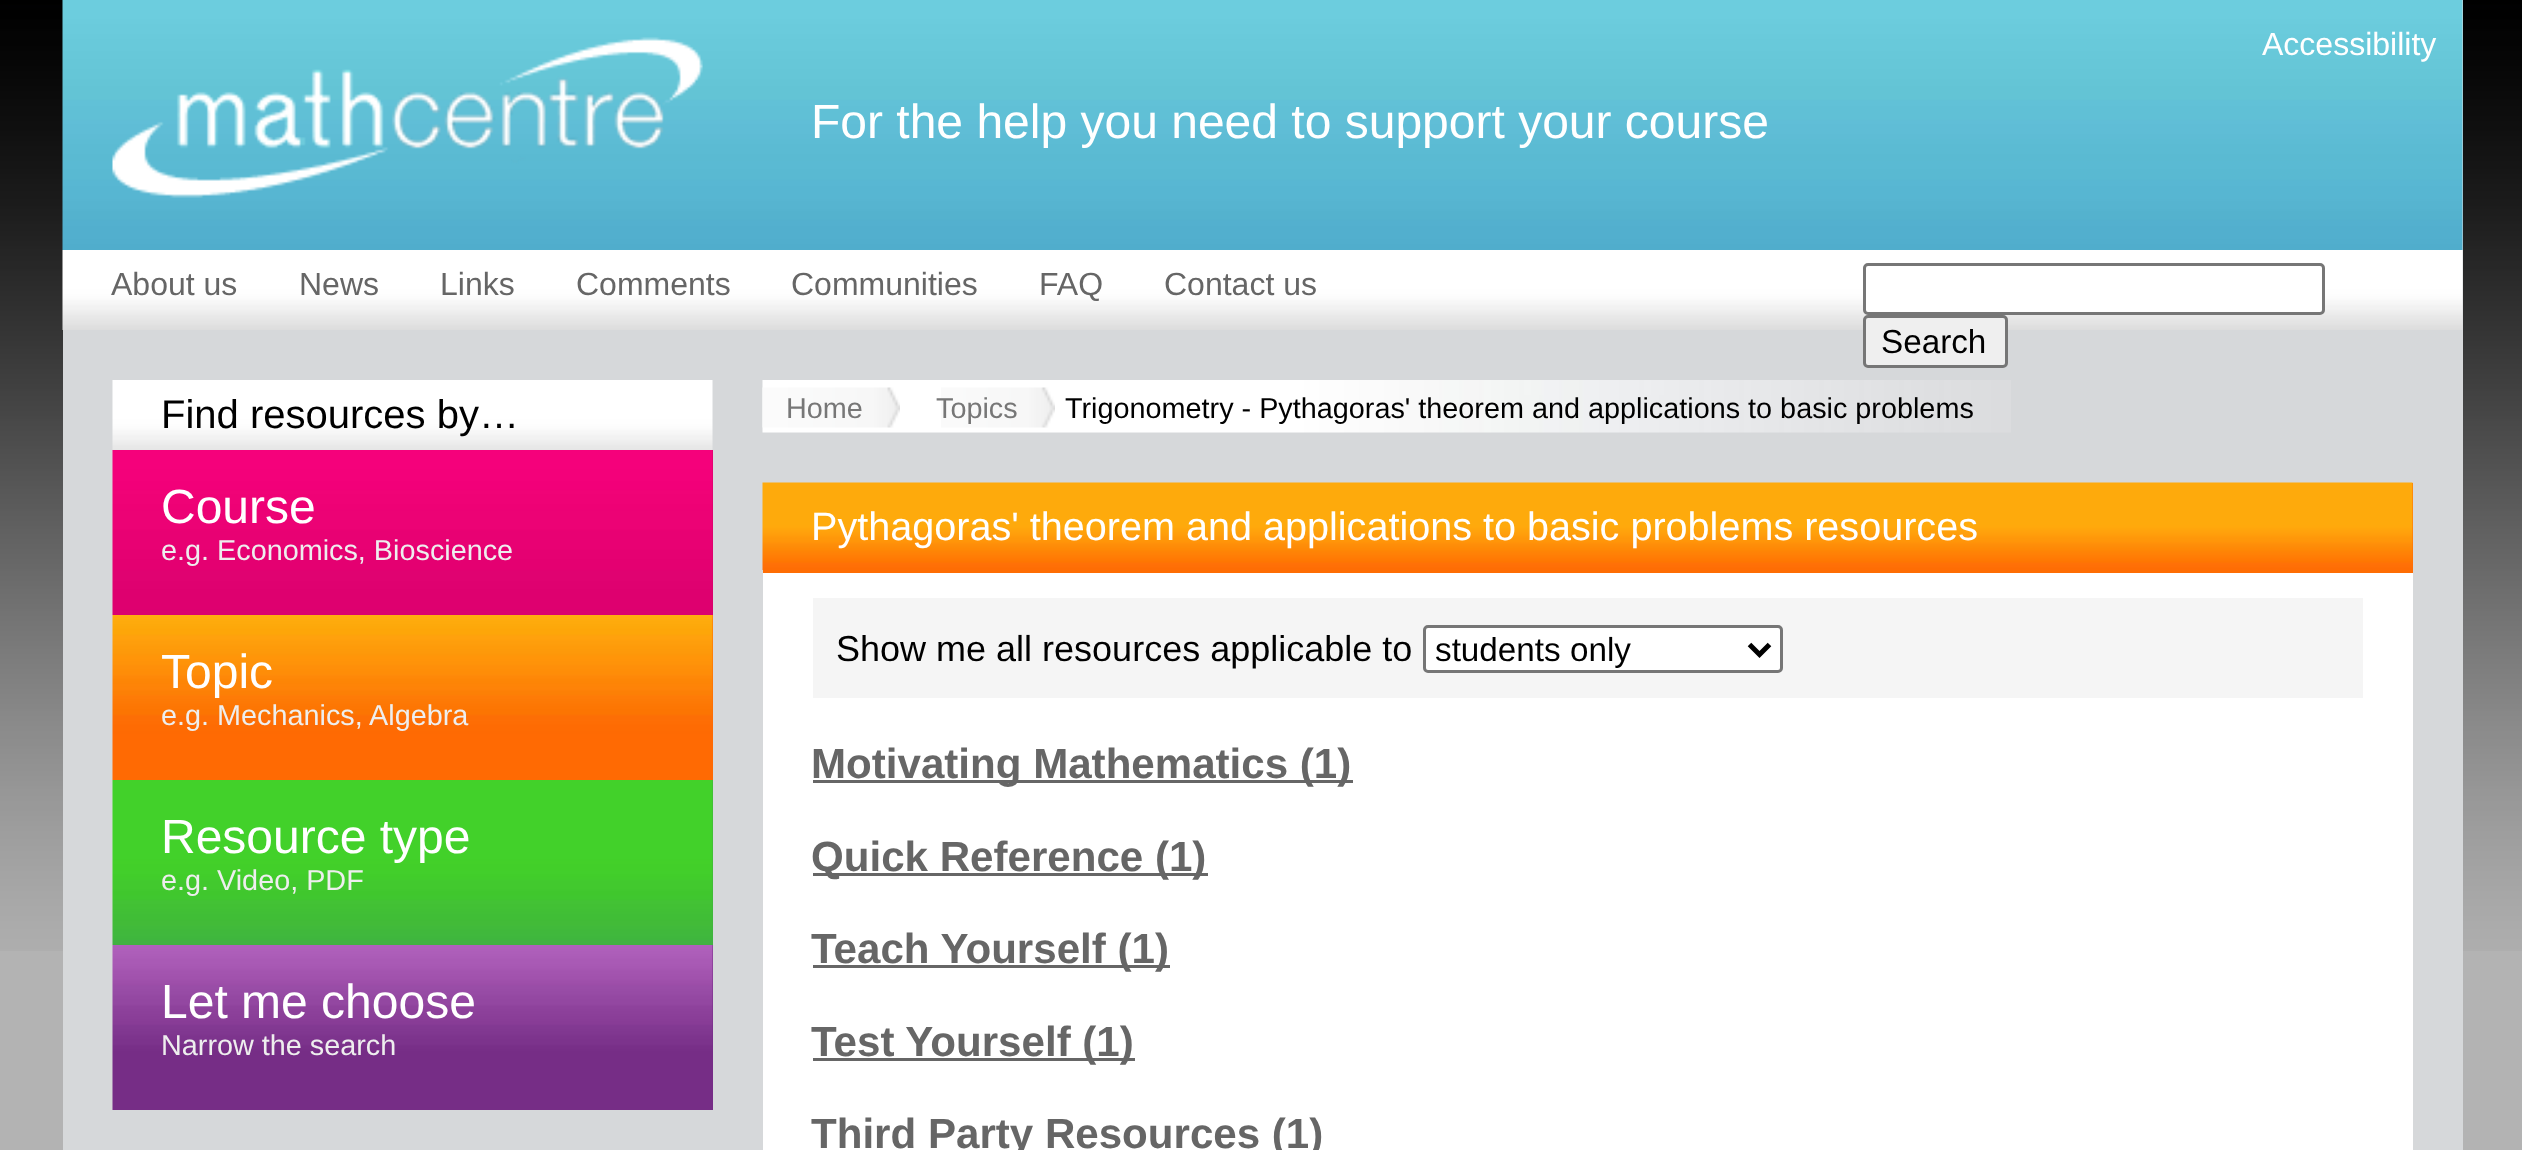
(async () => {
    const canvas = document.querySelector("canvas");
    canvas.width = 2522;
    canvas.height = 1150;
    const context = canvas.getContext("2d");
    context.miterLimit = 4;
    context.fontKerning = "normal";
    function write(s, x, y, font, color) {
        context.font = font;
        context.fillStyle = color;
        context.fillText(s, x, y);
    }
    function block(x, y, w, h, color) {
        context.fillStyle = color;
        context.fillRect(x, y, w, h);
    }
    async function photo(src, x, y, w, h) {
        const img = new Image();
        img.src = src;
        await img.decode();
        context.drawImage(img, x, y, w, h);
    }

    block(0, 0, 2522, 1150, "rgb(179, 179, 179)");
    await photo("media/1.png", 0, 0, 2522, 951);
    block(63, 0, 2400, 1150, "rgb(214, 216, 218)");
    await photo("media/2.png", 62, 0, 2401, 250);
    await photo("media/3.png", 112, 37, 591, 161);
    write("For the help you need to support your course", 811, 138, "48px Liberation Sans", "rgb(255, 255, 255)");
    write("Accessibility", 2262, 55, "32px Liberation Sans", "rgb(255, 255, 255)");
    await photo("media/4.png", 62, 250, 2401, 80);
    write("About us", 111, 295, "32px Liberation Sans", "rgb(102, 102, 102)");
    write("News", 299, 295, "32px Liberation Sans", "rgb(102, 102, 102)");
    write("Links", 440, 295, "32px Liberation Sans", "rgb(102, 102, 102)");
    write("Comments", 576, 295, "32px Liberation Sans", "rgb(102, 102, 102)");
    write("Communities", 791, 295, "32px Liberation Sans", "rgb(102, 102, 102)");
    write("FAQ", 1039, 295, "32px Liberation Sans", "rgb(102, 102, 102)");
    write("Contact us", 1164, 295, "32px Liberation Sans", "rgb(102, 102, 102)");
    context.fillStyle = "rgb(255, 255, 255)";
    context.beginPath();
    context.roundRect(1864.5, 264.5, 459, 49, 3.5);
    context.fill();
    context.strokeStyle = "rgb(118, 118, 118)";
    context.lineWidth = 3;
    context.stroke();
    context.fillStyle = "rgb(239, 239, 239)";
    context.beginPath();
    context.roundRect(1864.5, 316.5, 142, 50, 3.5);
    context.fill();
    context.stroke();
    write("Search", 1881, 353, "33.25px Liberation Sans", "rgb(0, 0, 0)");
    await photo("media/5.png", 112, 380, 601, 70);
    write("Find resources by…", 161, 428, "40px Liberation Sans", "rgb(0, 0, 0)");
    block(712, 450, 1, 165, "rgb(216, 0, 109)");
    await photo("media/6.png", 112, 450, 601, 165);
    write("Course", 161, 523, "48px Liberation Sans", "rgb(255, 255, 255)");
    write("e.g. Economics, Bioscience", 161, 560, "28.8px Liberation Sans", "rgb(238, 238, 238)");
    block(712, 615, 1, 165, "rgb(255, 106, 3)");
    await photo("media/7.png", 112, 615, 601, 165);
    write("Topic", 161, 688, "48px Liberation Sans", "rgb(255, 255, 255)");
    write("e.g. Mechanics, Algebra", 161, 725, "28.8px Liberation Sans", "rgb(238, 238, 238)");
    block(712, 780, 1, 165, "rgb(64, 176, 64)");
    await photo("media/8.png", 112, 780, 601, 165);
    write("Resource type", 161, 853, "48px Liberation Sans", "rgb(255, 255, 255)");
    write("e.g. Video, PDF", 161, 890, "28.8px Liberation Sans", "rgb(238, 238, 238)");
    block(712, 945, 1, 165, "rgb(118, 45, 134)");
    await photo("media/9.png", 112, 945, 601, 165);
    write("Let me choose", 161, 1018, "48px Liberation Sans", "rgb(255, 255, 255)");
    write("Narrow the search", 161, 1055, "28.8px Liberation Sans", "rgb(238, 238, 238)");
    await photo("media/10.png", 762, 380, 1249, 53);
    await photo("media/11.png", 762, 387, 138, 41);
    await photo("media/12.png", 941, 387, 114, 41);
    write("Home", 786, 418, "28.8px Liberation Sans", "rgb(119, 119, 119)");
    write("Topics", 936, 418, "28.8px Liberation Sans", "rgb(119, 119, 119)");
    write("Trigonometry - Pythagoras' theorem and applications to basic problems", 1065, 418, "28.8px Liberation Sans", "rgb(0, 0, 0)");
    block(763, 573, 1650, 577, "rgb(255, 255, 255)");
    block(763, 483, 1650, 90, "rgb(254, 109, 4)");
    await photo("media/13.png", 762, 482, 1651, 88);
    write("Pythagoras' theorem and applications to basic problems resources", 811, 540, "39.6px Liberation Sans", "rgb(255, 255, 255)");
    block(813, 598, 1550, 100, "rgb(245, 245, 245)");
    write("Show me all resources applicable to", 836, 661, "36px Liberation Sans", "rgb(0, 0, 0)");
    context.fillStyle = "rgb(255, 255, 255)";
    context.beginPath();
    context.roundRect(1424.5, 626.5, 357, 45, 3.5);
    context.fill();
    context.stroke();
    context.beginPath();
    context.moveTo(1749.5, 644.5);
    context.lineTo(1759.5, 654.5);
    context.lineTo(1769.5, 644.5);
    context.strokeStyle = "rgb(0, 0, 0)";
    context.lineWidth = 5;
    context.stroke();
    write("students only", 1435, 661, "33.25px Liberation Sans", "rgb(0, 0, 0)");
    block(813, 780, 540, 3, "rgb(102, 102, 102)");
    write("Motivating Mathematics (1)", 811, 778, "bold 42.1px Liberation Sans", "rgb(102, 102, 102)");
    block(813, 873, 395, 3, "rgb(102, 102, 102)");
    write("Quick Reference (1)", 811, 871, "bold 42.1px Liberation Sans", "rgb(102, 102, 102)");
    block(813, 965, 357, 3, "rgb(102, 102, 102)");
    write("Teach Yourself (1)", 811, 963, "bold 42.1px Liberation Sans", "rgb(102, 102, 102)");
    block(813, 1058, 322, 3, "rgb(102, 102, 102)");
    write("Test Yourself (1)", 811, 1056, "bold 42.1px Liberation Sans", "rgb(102, 102, 102)");
    write("Third Party Resources (1)", 811, 1148, "bold 42.1px Liberation Sans", "rgb(102, 102, 102)");
})();
